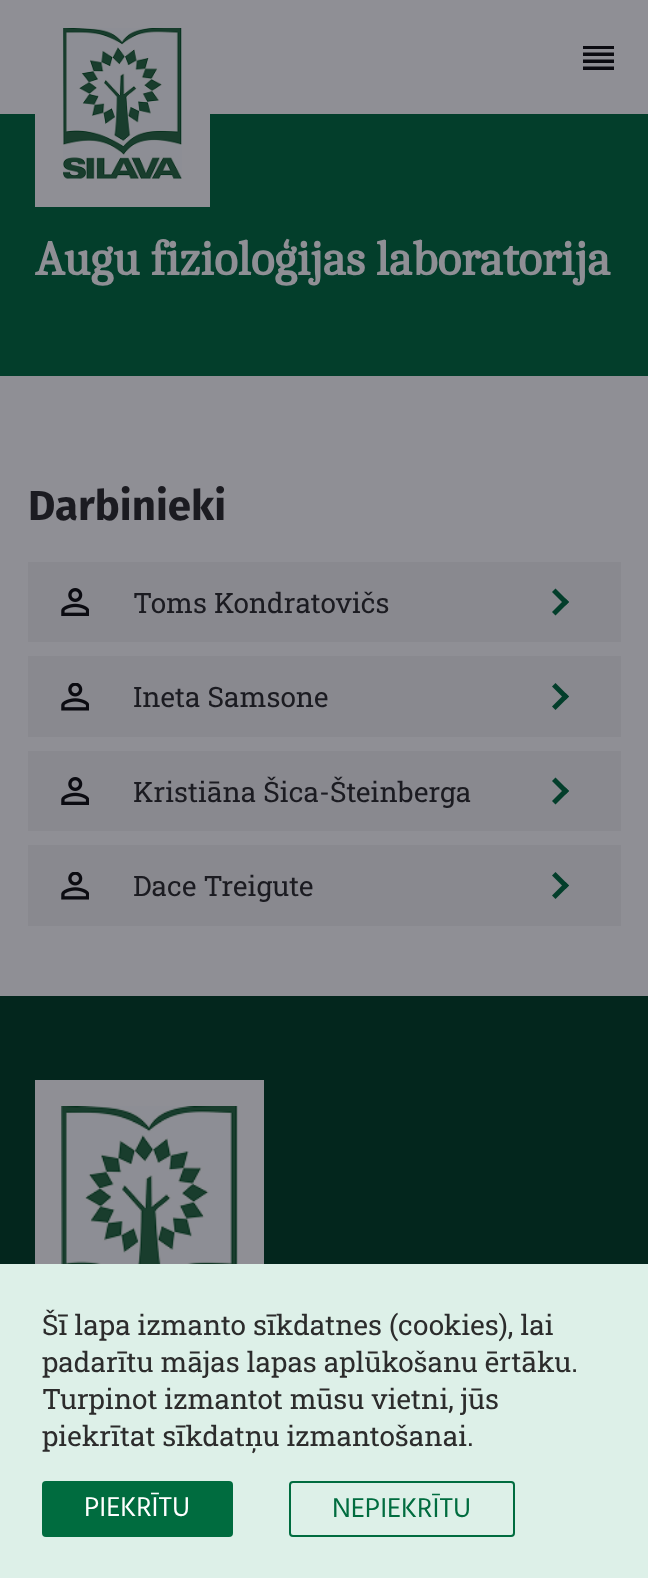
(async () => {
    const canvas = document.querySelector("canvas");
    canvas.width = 648;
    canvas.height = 1578;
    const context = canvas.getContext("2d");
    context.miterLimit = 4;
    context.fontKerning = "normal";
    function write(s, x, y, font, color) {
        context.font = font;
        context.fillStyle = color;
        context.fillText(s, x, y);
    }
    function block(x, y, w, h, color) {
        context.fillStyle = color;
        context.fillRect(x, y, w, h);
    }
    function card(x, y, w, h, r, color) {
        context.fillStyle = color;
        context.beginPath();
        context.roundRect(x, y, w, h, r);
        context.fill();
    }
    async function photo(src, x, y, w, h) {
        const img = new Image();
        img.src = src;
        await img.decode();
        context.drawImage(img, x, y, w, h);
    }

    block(0, 0, 648, 1578, "rgb(143, 143, 149)");
    block(0, 114, 648, 262, "rgb(3, 62, 43)");
    block(35, 114, 175, 93, "rgb(143, 143, 149)");
    await photo("media/1.png", 63, 28, 119, 151);
    await photo("media/2.png", 583, 46, 31, 24);
    write("Augu fizioloģijas laboratorija", 35, 275, "bold 49px Caladea", "rgb(143, 143, 149)");
    write("Darbinieki", 28, 520, "bold 42px Fira Sans", "rgb(27, 27, 33)");
    block(28, 562, 593, 80, "rgb(137, 137, 143)");
    await photo("media/3.png", 61, 588, 28, 28);
    write("Toms Kondratovičs", 133, 613, "28px Roboto Slab", "rgb(27, 27, 33)");
    context.fillStyle = "rgb(3, 62, 43)";
    context.beginPath();
    context.moveTo(552, 592);
    context.lineTo(555.5, 588.5);
    context.lineTo(569, 602);
    context.lineTo(565.5, 605.5);
    context.closePath();
    context.fill();
    context.beginPath();
    context.moveTo(552, 612);
    context.lineTo(565.5, 598.5);
    context.lineTo(569, 602);
    context.lineTo(555.5, 615.5);
    context.closePath();
    context.fill();
    block(28, 656, 593, 81, "rgb(137, 137, 143)");
    await photo("media/4.png", 61, 683, 28, 28);
    write("Ineta Samsone", 133, 707, "28px Roboto Slab", "rgb(27, 27, 33)");
    context.fillStyle = "rgb(3, 62, 43)";
    context.beginPath();
    context.moveTo(552, 686.5);
    context.lineTo(555.5, 683);
    context.lineTo(569, 696.5);
    context.lineTo(565.5, 700);
    context.closePath();
    context.fill();
    context.beginPath();
    context.moveTo(552, 706.5);
    context.lineTo(565.5, 693);
    context.lineTo(569, 696.5);
    context.lineTo(555.5, 710);
    context.closePath();
    context.fill();
    block(28, 751, 593, 80, "rgb(137, 137, 143)");
    await photo("media/3.png", 61, 777, 28, 28);
    write("Kristiāna Šica-Šteinberga", 133, 802, "28px Roboto Slab", "rgb(27, 27, 33)");
    context.fillStyle = "rgb(3, 62, 43)";
    context.beginPath();
    context.moveTo(552, 781);
    context.lineTo(555.5, 777.5);
    context.lineTo(569, 791);
    context.lineTo(565.5, 794.5);
    context.closePath();
    context.fill();
    context.beginPath();
    context.moveTo(552, 801);
    context.lineTo(565.5, 787.5);
    context.lineTo(569, 791);
    context.lineTo(555.5, 804.5);
    context.closePath();
    context.fill();
    block(28, 845, 593, 81, "rgb(137, 137, 143)");
    await photo("media/4.png", 61, 872, 28, 28);
    write("Dace Treigute", 133, 896, "28px Roboto Slab", "rgb(27, 27, 33)");
    context.fillStyle = "rgb(3, 62, 43)";
    context.beginPath();
    context.moveTo(552, 875.5);
    context.lineTo(555.5, 872);
    context.lineTo(569, 885.5);
    context.lineTo(565.5, 889);
    context.closePath();
    context.fill();
    context.beginPath();
    context.moveTo(552, 895.5);
    context.lineTo(565.5, 882);
    context.lineTo(569, 885.5);
    context.lineTo(555.5, 899);
    context.closePath();
    context.fill();
    block(0, 996, 648, 268, "rgb(3, 38, 29)");
    block(35, 1080, 229, 184, "rgb(143, 143, 149)");
    await photo("media/5.png", 61, 1106, 177, 158);
    block(0, 1264, 648, 314, "rgb(221, 240, 232)");
    write("Šī lapa izmanto sīkdatnes (cookies), lai", 42, 1335, "28px Roboto Slab", "rgb(44, 44, 44)");
    write("padarītu mājas lapas aplūkošanu ērtāku.", 42, 1372, "28px Roboto Slab", "rgb(44, 44, 44)");
    write("Turpinot izmantot mūsu vietni, jūs", 42, 1409, "28px Roboto Slab", "rgb(44, 44, 44)");
    write("piekrītat sīkdatņu izmantošanai.", 42, 1446, "28px Roboto Slab", "rgb(44, 44, 44)");
    card(42, 1481, 191, 56, 4, "rgb(0, 108, 63)");
    write("PIEKRĪTU", 84, 1516, "28px Hind", "rgb(255, 255, 255)");
    context.beginPath();
    context.roundRect(290, 1482, 224, 54, 3);
    context.strokeStyle = "rgb(0, 108, 63)";
    context.lineWidth = 2;
    context.stroke();
    write("NEPIEKRĪTU", 332, 1517, "28px Hind", "rgb(0, 108, 63)");
})();
